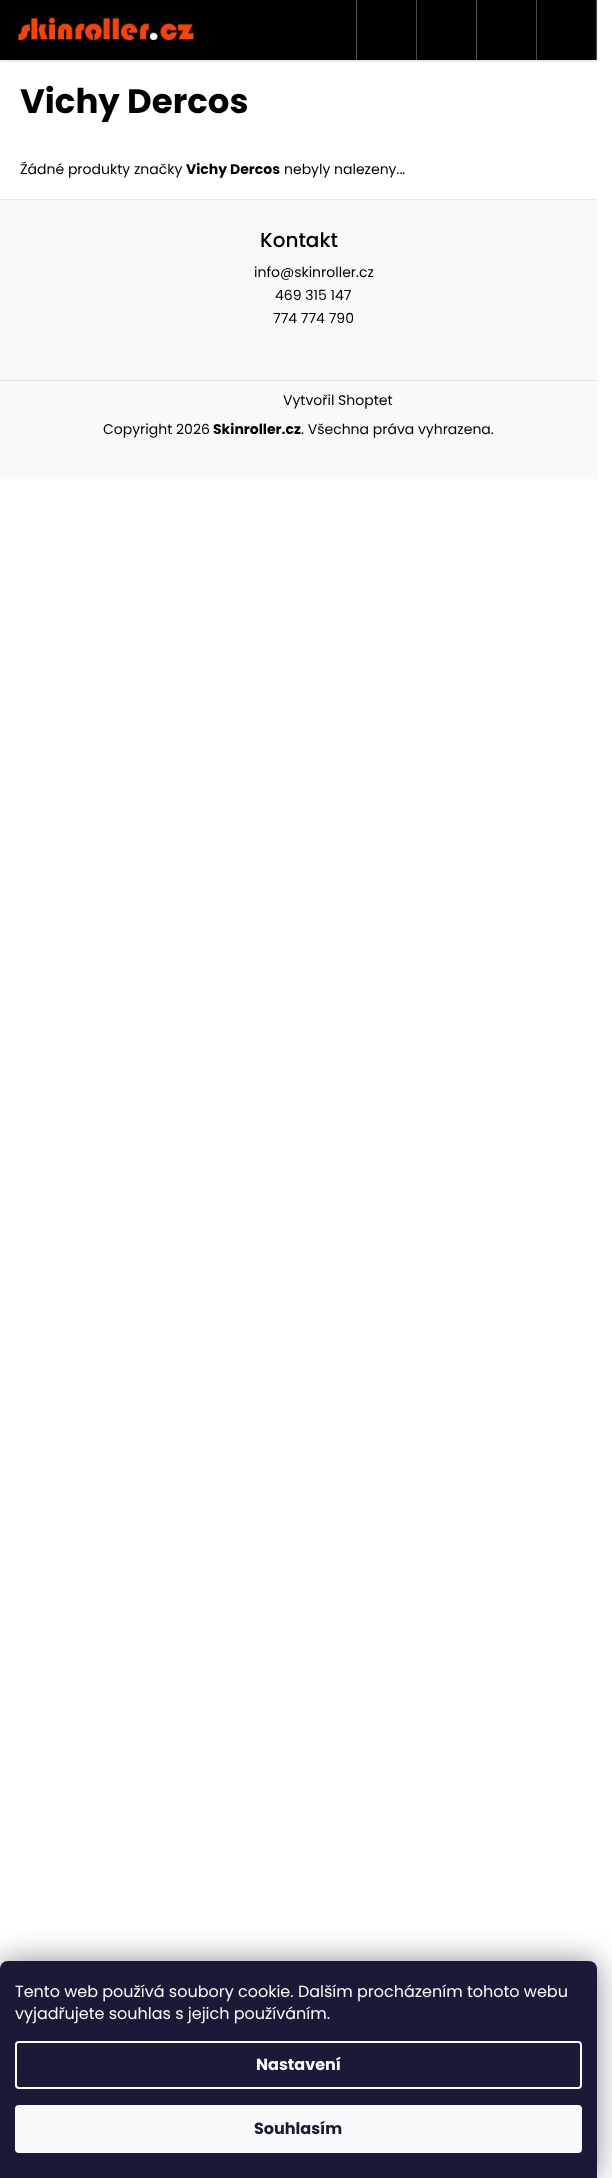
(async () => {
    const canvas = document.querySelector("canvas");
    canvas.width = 612;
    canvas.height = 2178;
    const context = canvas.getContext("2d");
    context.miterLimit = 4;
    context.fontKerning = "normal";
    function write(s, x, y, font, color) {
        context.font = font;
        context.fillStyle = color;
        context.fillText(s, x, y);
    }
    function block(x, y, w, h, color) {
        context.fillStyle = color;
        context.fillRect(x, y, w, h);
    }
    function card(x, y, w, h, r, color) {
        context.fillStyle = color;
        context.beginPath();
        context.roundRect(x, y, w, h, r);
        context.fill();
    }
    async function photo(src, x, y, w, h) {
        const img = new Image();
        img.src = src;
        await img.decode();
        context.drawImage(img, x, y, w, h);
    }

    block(0, 0, 612, 2178, "rgb(255, 255, 255)");
    context.fillStyle = "rgba(0, 0, 0, 0.16)";
    context.filter = "blur(1px)";
    context.beginPath();
    context.rect(0, 1, 597, 60);
    context.fill();
    context.filter = "none";
    block(0, 0, 596, 60, "rgb(0, 0, 0)");
    await photo("media/1.png", 16, 16, 183, 26);
    block(596, 0, 1, 60, "rgb(77, 77, 77)");
    block(356, 0, 1, 60, "rgb(77, 77, 77)");
    block(416, 0, 1, 60, "rgb(77, 77, 77)");
    block(476, 0, 1, 60, "rgb(77, 77, 77)");
    block(536, 0, 1, 60, "rgb(77, 77, 77)");
    write("Vichy Dercos", 20, 113, "bold 34px Poppins", "rgb(0, 0, 0)");
    write("Žádné produkty značky", 20, 174, "14px Poppins", "rgb(0, 0, 0)");
    write("Vichy Dercos", 186, 174, "bold 14px Poppins", "rgb(0, 0, 0)");
    write("nebyly nalezeny...", 284, 174, "14px Poppins", "rgb(0, 0, 0)");
    block(0, 200, 597, 279, "rgb(249, 249, 249)");
    block(0, 199, 597, 1, "rgb(230, 230, 230)");
    write("Kontakt", 260, 247, "500 20px Poppins", "rgb(0, 0, 0)");
    write("info@skinroller.cz", 254, 277, "14px Poppins", "rgb(0, 0, 0)");
    write("469 315 147", 275, 300, "14px Poppins", "rgb(0, 0, 0)");
    write("774 774 790", 273, 323, "14px Poppins", "rgb(0, 0, 0)");
    block(0, 380, 597, 1, "rgb(230, 230, 230)");
    write("Vytvořil Shoptet", 283, 405, "14px Poppins", "rgb(0, 0, 0)");
    write("Copyright 2026", 103, 434, "14px Poppins", "rgb(0, 0, 0)");
    write("Skinroller.cz", 213, 434, "bold 14px Poppins", "rgb(0, 0, 0)");
    write(". Všechna práva vyhrazena.", 301, 434, "14px Poppins", "rgb(0, 0, 0)");
    context.fillStyle = "rgba(27, 25, 57, 0.5)";
    context.filter = "blur(15px)";
    context.beginPath();
    context.roundRect(0, 1961, 597, 217, 8);
    context.fill();
    context.filter = "none";
    context.fillStyle = "rgb(26, 25, 55)";
    context.beginPath();
    context.roundRect(0, 1961, 597, 217, [8, 8, 0, 0]);
    context.fill();
    write("Tento web používá soubory cookie. Dalším procházením tohoto webu", 15, 1997, "16px Poppins", "rgb(248, 250, 251)");
    write("vyjadřujete souhlas s jejich používáním.", 15, 2019, "16px Poppins", "rgb(248, 250, 251)");
    context.beginPath();
    context.roundRect(16, 2042, 565, 46, 3);
    context.strokeStyle = "rgb(248, 250, 251)";
    context.lineWidth = 2;
    context.stroke();
    write("Nastavení", 256, 2070, "bold 16px Poppins", "rgb(248, 250, 251)");
    card(15, 2105, 567, 48, 4, "rgb(248, 250, 251)");
    write("Souhlasím", 254, 2134, "bold 16px Poppins", "rgb(26, 25, 55)");
})();
